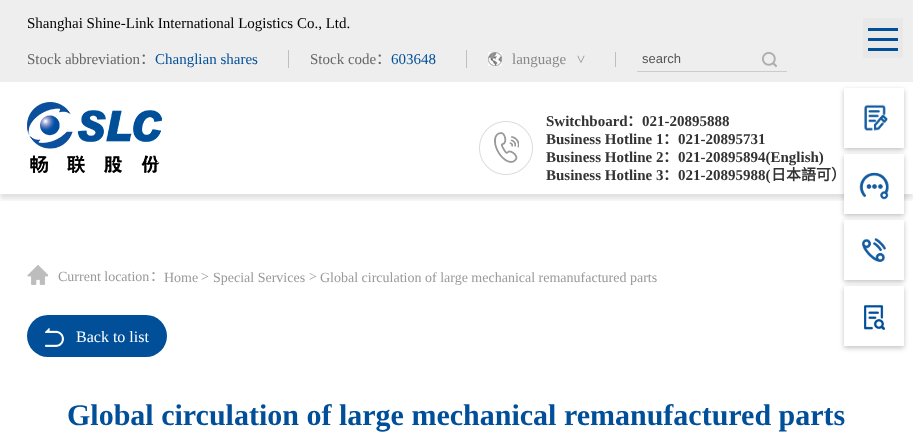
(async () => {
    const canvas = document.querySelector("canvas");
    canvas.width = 913;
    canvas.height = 439;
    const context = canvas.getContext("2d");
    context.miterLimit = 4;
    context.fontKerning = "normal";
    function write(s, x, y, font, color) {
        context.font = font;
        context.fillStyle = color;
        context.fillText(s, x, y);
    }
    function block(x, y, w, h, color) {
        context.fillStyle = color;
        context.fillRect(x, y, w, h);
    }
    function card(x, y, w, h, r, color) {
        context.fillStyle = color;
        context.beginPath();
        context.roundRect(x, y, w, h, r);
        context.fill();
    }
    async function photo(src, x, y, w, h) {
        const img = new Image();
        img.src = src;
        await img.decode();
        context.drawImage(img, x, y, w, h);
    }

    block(0, 0, 913, 439, "rgb(255, 255, 255)");
    context.save();
    context.beginPath();
    context.rect(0, 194, 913, 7);
    context.clip();
    context.fillStyle = "rgba(0, 0, 0, 0.12)";
    context.filter = "blur(2.5px)";
    context.beginPath();
    context.rect(0, 5, 913, 194);
    context.fill();
    context.filter = "none";
    context.restore();
    block(0, 0, 913, 82, "rgb(238, 238, 238)");
    write("Shanghai Shine-Link International Logistics Co., Ltd.", 27, 28, "15px Liberation Serif", "rgb(0, 0, 0)");
    block(288, 50, 1, 18, "rgb(191, 191, 191)");
    write("Stock abbreviation", 27, 64, "15px Liberation Serif", "rgb(102, 102, 102)");
    write("：", 140, 64, "15px Noto Sans CJK SC", "rgb(102, 102, 102)");
    write("Changlian shares", 155, 64, "15px Liberation Serif", "rgb(1, 79, 153)");
    block(466, 50, 1, 18, "rgb(191, 191, 191)");
    write("Stock code", 310, 64, "15px Liberation Serif", "rgb(102, 102, 102)");
    write("：", 376, 64, "15px Noto Sans CJK SC", "rgb(102, 102, 102)");
    write("603648", 391, 64, "15px Liberation Serif", "rgb(1, 79, 153)");
    block(615, 52, 1, 15, "rgb(191, 191, 191)");
    await photo("media/1.png", 488, 52, 14, 14);
    write("language", 512, 64, "15px Liberation Serif", "rgb(136, 136, 136)");
    context.save();
    context.translate(576, 55);
    context.rotate(90 * Math.PI / 180);
    context.fillText(">", 0, 0);
    context.restore();
    block(637, 71, 150, 1, "rgb(204, 204, 204)");
    write("search", 642, 63, "13px Liberation Sans", "rgb(85, 85, 85)");
    await photo("media/2.png", 762, 52, 15, 15);
    await photo("media/3.png", 27, 102, 135, 71);
    await photo("media/4.png", 479, 121, 54, 54);
    write("Switchboard", 546, 126, "bold 15px Liberation Serif", "rgb(51, 51, 51)");
    write("：", 627, 126, "bold 15px Noto Sans CJK SC", "rgb(51, 51, 51)");
    write("021-20895888", 642, 126, "bold 15px Liberation Serif", "rgb(51, 51, 51)");
    write("Business Hotline 1", 546, 144, "bold 15px Liberation Serif", "rgb(51, 51, 51)");
    write("：", 663, 144, "bold 15px Noto Sans CJK SC", "rgb(51, 51, 51)");
    write("021-20895731", 678, 144, "bold 15px Liberation Serif", "rgb(51, 51, 51)");
    write("Business Hotline 2", 546, 162, "bold 15px Liberation Serif", "rgb(51, 51, 51)");
    write("：", 663, 162, "bold 15px Noto Sans CJK SC", "rgb(51, 51, 51)");
    write("021-20895894(English)", 678, 162, "bold 15px Liberation Serif", "rgb(51, 51, 51)");
    write("Business Hotline 3", 546, 180, "bold 15px Liberation Serif", "rgb(51, 51, 51)");
    write("：", 663, 180, "bold 15px Noto Sans CJK SC", "rgb(51, 51, 51)");
    write("021-20895988(", 678, 180, "bold 15px Liberation Serif", "rgb(51, 51, 51)");
    write("日本語可）", 771, 180, "bold 15px Noto Sans CJK SC", "rgb(51, 51, 51)");
    block(863, 18, 40, 40, "rgb(232, 232, 232)");
    block(868, 38, 30, 3, "rgb(1, 79, 153)");
    block(868, 28, 30, 3, "rgb(1, 79, 153)");
    block(868, 48, 30, 3, "rgb(1, 79, 153)");
    await photo("media/5.png", 27, 265, 21, 20);
    write("Current location", 58, 281, "14px Liberation Serif", "rgb(153, 153, 153)");
    write("：", 150, 281, "14px Noto Sans CJK SC", "rgb(153, 153, 153)");
    write("Home", 164, 282, "14px Liberation Serif", "rgb(153, 153, 153)");
    write(">", 201, 281, "14px Liberation Serif", "rgb(153, 153, 153)");
    write("Special Services", 213, 282, "14px Liberation Serif", "rgb(153, 153, 153)");
    write(">", 309, 281, "14px Liberation Serif", "rgb(153, 153, 153)");
    write("Global circulation of large mechanical remanufactured parts", 320, 282, "14px Liberation Serif", "rgb(153, 153, 153)");
    card(27, 315, 140, 42, 21, "rgb(1, 79, 153)");
    await photo("media/6.png", 45, 328, 19, 19);
    write("Back to list", 76, 342, "16px Liberation Serif", "rgb(255, 255, 255)");
    write("Global circulation of large mechanical remanufactured parts", 67, 425, "bold 30px Liberation Serif", "rgb(1, 79, 153)");
    context.save();
    context.beginPath();
    context.moveTo(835, 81);
    context.lineTo(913, 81);
    context.lineTo(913, 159);
    context.lineTo(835, 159);
    context.closePath();
    context.moveTo(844, 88);
    context.lineTo(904, 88);
    context.lineTo(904, 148);
    context.lineTo(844, 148);
    context.closePath();
    context.clip("evenodd");
    context.fillStyle = "rgba(0, 0, 0, 0.24)";
    context.filter = "blur(2.5px)";
    context.beginPath();
    context.rect(844, 90, 60, 60);
    context.fill();
    context.filter = "none";
    context.restore();
    await photo("media/7.png", 864, 104, 24, 27);
    context.fillStyle = "rgba(0, 0, 0, 0.24)";
    context.filter = "blur(2.5px)";
    context.beginPath();
    context.rect(844, 156, 60, 60);
    context.fill();
    context.filter = "none";
    block(844, 154, 60, 60, "rgb(255, 255, 255)");
    await photo("media/8.png", 859, 172, 30, 28);
    context.fillStyle = "rgba(0, 0, 0, 0.24)";
    context.filter = "blur(2.5px)";
    context.beginPath();
    context.rect(844, 222, 60, 60);
    context.fill();
    context.filter = "none";
    block(844, 220, 60, 60, "rgb(255, 255, 255)");
    await photo("media/9.png", 862, 238, 24, 24);
    context.fillStyle = "rgba(0, 0, 0, 0.24)";
    context.filter = "blur(2.5px)";
    context.beginPath();
    context.rect(844, 288, 60, 60);
    context.fill();
    context.filter = "none";
    block(844, 286, 60, 60, "rgb(255, 255, 255)");
    await photo("media/10.png", 864, 305, 21, 25);
})();
